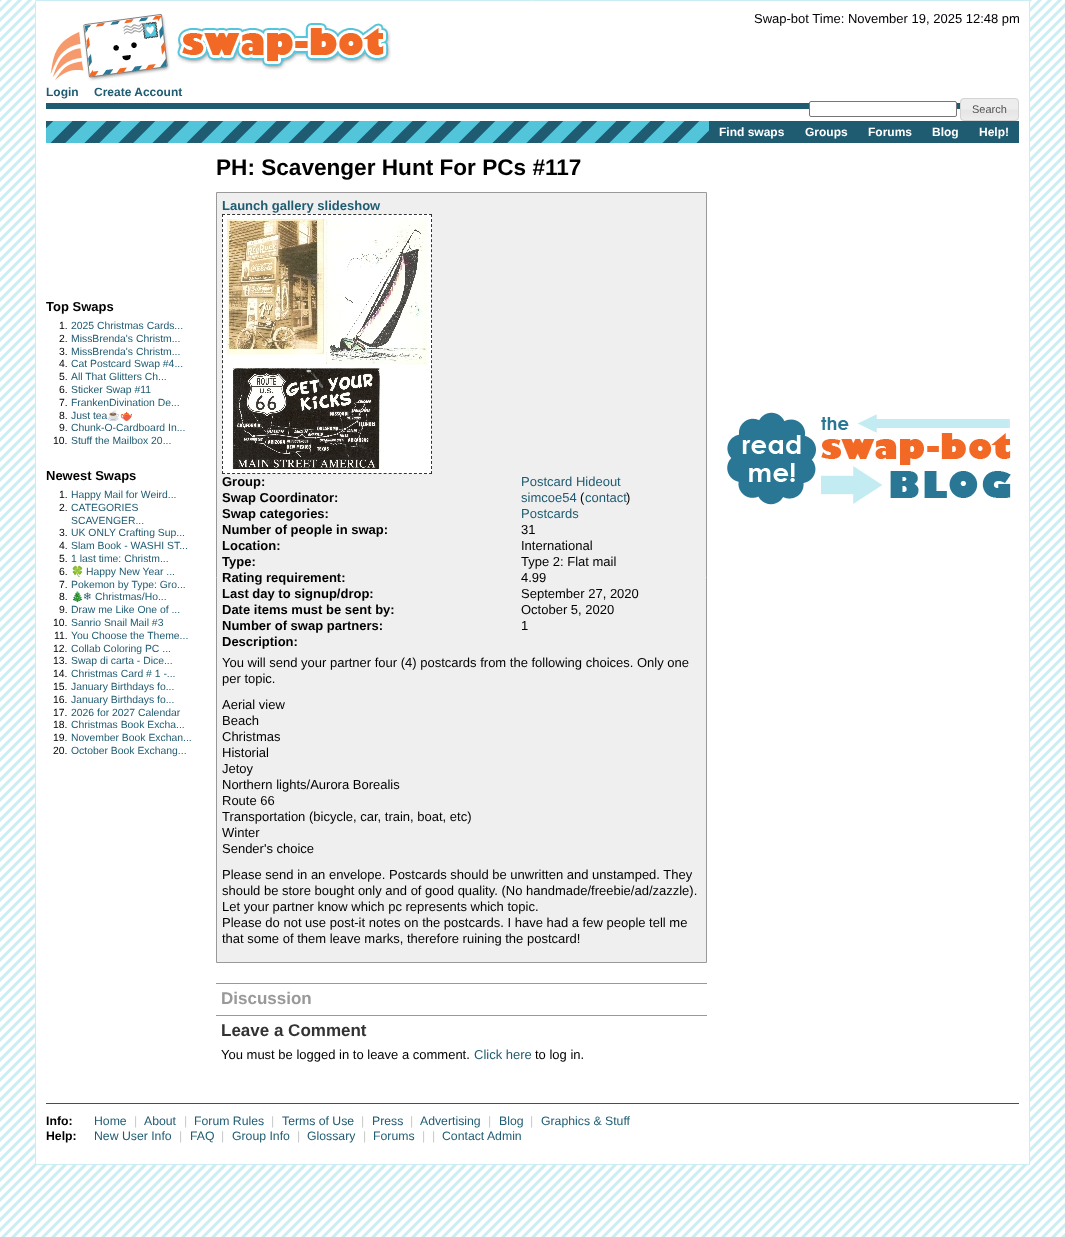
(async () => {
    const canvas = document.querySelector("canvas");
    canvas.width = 1065;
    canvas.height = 1237;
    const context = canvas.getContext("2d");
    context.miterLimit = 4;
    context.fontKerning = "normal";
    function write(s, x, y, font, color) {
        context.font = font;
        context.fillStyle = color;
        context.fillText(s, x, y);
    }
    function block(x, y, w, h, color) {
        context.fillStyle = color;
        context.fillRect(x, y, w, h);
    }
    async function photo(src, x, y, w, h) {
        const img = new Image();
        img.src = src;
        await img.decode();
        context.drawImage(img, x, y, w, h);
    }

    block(0, 0, 1065, 1237, "rgb(255, 255, 255)");
    await photo("media/1.png", 0, 0, 1065, 1237);
    context.beginPath();
    context.rect(35.5, 0.5, 994, 1164);
    context.fill();
    context.strokeStyle = "rgb(203, 238, 244)";
    context.stroke();
    await photo("media/2.png", 50, 14, 341, 67);
    write("Swap-bot Time: November 19, 2025 12:48 pm", 754, 23, "13px Liberation Sans", "rgb(0, 0, 0)");
    block(46, 103, 914, 6, "rgb(31, 91, 113)");
    write("Login", 46, 96, "bold 12px Liberation Sans", "rgb(31, 91, 113)");
    write("Create Account", 94, 96, "bold 12px Liberation Sans", "rgb(31, 91, 113)");
    context.fillStyle = "rgb(255, 255, 255)";
    context.beginPath();
    context.roundRect(809.5, 101.5, 147, 15, 1.5);
    context.fill();
    context.strokeStyle = "rgb(118, 118, 118)";
    context.stroke();
    await photo("media/3.png", 960, 98, 59, 23);
    context.beginPath();
    context.roundRect(960.5, 98.5, 58, 22, 3.5);
    context.strokeStyle = "rgb(211, 211, 211)";
    context.stroke();
    write("Search", 972, 113, "11px Liberation Sans", "rgb(85, 85, 85)");
    await photo("media/4.png", 46, 121, 663, 22);
    block(709, 121, 310, 22, "rgb(31, 91, 113)");
    write("Find swaps", 719, 136, "bold 12px Liberation Sans", "rgb(255, 255, 255)");
    write("Groups", 805, 136, "bold 12px Liberation Sans", "rgb(255, 255, 255)");
    write("Forums", 868, 136, "bold 12px Liberation Sans", "rgb(255, 255, 255)");
    write("Blog", 932, 136, "bold 12px Liberation Sans", "rgb(255, 255, 255)");
    write("Help!", 979, 136, "bold 12px Liberation Sans", "rgb(255, 255, 255)");
    write("Top Swaps", 46, 311, "bold 13px Liberation Sans", "rgb(0, 0, 0)");
    write("1.", 59, 329, "10.4px Liberation Sans", "rgb(0, 0, 0)");
    write("2025 Christmas Cards...", 71, 329, "10.4px Liberation Sans", "rgb(31, 91, 113)");
    write("2.", 59, 342, "10.4px Liberation Sans", "rgb(0, 0, 0)");
    write("MissBrenda's Christm...", 71, 342, "10.4px Liberation Sans", "rgb(31, 91, 113)");
    write("3.", 59, 355, "10.4px Liberation Sans", "rgb(0, 0, 0)");
    write("MissBrenda's Christm...", 71, 355, "10.4px Liberation Sans", "rgb(31, 91, 113)");
    write("4.", 59, 367, "10.4px Liberation Sans", "rgb(0, 0, 0)");
    write("Cat Postcard Swap #4...", 71, 367, "10.4px Liberation Sans", "rgb(31, 91, 113)");
    write("5.", 59, 380, "10.4px Liberation Sans", "rgb(0, 0, 0)");
    write("All That Glitters Ch...", 71, 380, "10.4px Liberation Sans", "rgb(31, 91, 113)");
    write("6.", 59, 393, "10.4px Liberation Sans", "rgb(0, 0, 0)");
    write("Sticker Swap #11", 71, 393, "10.4px Liberation Sans", "rgb(31, 91, 113)");
    write("7.", 59, 406, "10.4px Liberation Sans", "rgb(0, 0, 0)");
    write("FrankenDivination De...", 71, 406, "10.4px Liberation Sans", "rgb(31, 91, 113)");
    write("8.", 59, 419, "10.4px Liberation Sans", "rgb(0, 0, 0)");
    write("Just tea", 71, 419, "10.4px Liberation Sans", "rgb(31, 91, 113)");
    write("☕🫖", 107, 419, "10.4px Noto Color Emoji", "rgb(31, 91, 113)");
    write("9.", 59, 431, "10.4px Liberation Sans", "rgb(0, 0, 0)");
    write("Chunk-O-Cardboard In...", 71, 431, "10.4px Liberation Sans", "rgb(31, 91, 113)");
    write("10.", 53, 444, "10.4px Liberation Sans", "rgb(0, 0, 0)");
    write("Stuff the Mailbox 20...", 71, 444, "10.4px Liberation Sans", "rgb(31, 91, 113)");
    write("Newest Swaps", 46, 480, "bold 13px Liberation Sans", "rgb(0, 0, 0)");
    write("1.", 59, 498, "10.4px Liberation Sans", "rgb(0, 0, 0)");
    write("Happy Mail for Weird...", 71, 498, "10.4px Liberation Sans", "rgb(31, 91, 113)");
    write("2.", 59, 511, "10.4px Liberation Sans", "rgb(0, 0, 0)");
    write("CATEGORIES", 71, 511, "10.4px Liberation Sans", "rgb(31, 91, 113)");
    write("SCAVENGER...", 71, 524, "10.4px Liberation Sans", "rgb(31, 91, 113)");
    write("3.", 59, 536, "10.4px Liberation Sans", "rgb(0, 0, 0)");
    write("UK ONLY Crafting Sup...", 71, 536, "10.4px Liberation Sans", "rgb(31, 91, 113)");
    write("4.", 59, 549, "10.4px Liberation Sans", "rgb(0, 0, 0)");
    write("Slam Book - WASHI ST...", 71, 549, "10.4px Liberation Sans", "rgb(31, 91, 113)");
    write("5.", 59, 562, "10.4px Liberation Sans", "rgb(0, 0, 0)");
    write("1 last time: Christm...", 71, 562, "10.4px Liberation Sans", "rgb(31, 91, 113)");
    write("6.", 59, 575, "10.4px Liberation Sans", "rgb(0, 0, 0)");
    write("🍀", 71, 575, "10.4px Noto Color Emoji", "rgb(31, 91, 113)");
    write("Happy New Year ...", 86, 575, "10.4px Liberation Sans", "rgb(31, 91, 113)");
    write("7.", 59, 588, "10.4px Liberation Sans", "rgb(0, 0, 0)");
    write("Pokemon by Type: Gro...", 71, 588, "10.4px Liberation Sans", "rgb(31, 91, 113)");
    write("8.", 59, 600, "10.4px Liberation Sans", "rgb(0, 0, 0)");
    write("🎄", 71, 600, "10.4px Noto Color Emoji", "rgb(31, 91, 113)");
    write("❄", 83, 600, "10.4px DejaVu Sans", "rgb(31, 91, 113)");
    write("Christmas/Ho...", 95, 600, "10.4px Liberation Sans", "rgb(31, 91, 113)");
    write("9.", 59, 613, "10.4px Liberation Sans", "rgb(0, 0, 0)");
    write("Draw me Like One of ...", 71, 613, "10.4px Liberation Sans", "rgb(31, 91, 113)");
    write("10.", 53, 626, "10.4px Liberation Sans", "rgb(0, 0, 0)");
    write("Sanrio Snail Mail #3", 71, 626, "10.4px Liberation Sans", "rgb(31, 91, 113)");
    write("11.", 54, 639, "10.4px Liberation Sans", "rgb(0, 0, 0)");
    write("You Choose the Theme...", 71, 639, "10.4px Liberation Sans", "rgb(31, 91, 113)");
    write("12.", 53, 652, "10.4px Liberation Sans", "rgb(0, 0, 0)");
    write("Collab Coloring PC ...", 71, 652, "10.4px Liberation Sans", "rgb(31, 91, 113)");
    write("13.", 53, 664, "10.4px Liberation Sans", "rgb(0, 0, 0)");
    write("Swap di carta - Dice...", 71, 664, "10.4px Liberation Sans", "rgb(31, 91, 113)");
    write("14.", 53, 677, "10.4px Liberation Sans", "rgb(0, 0, 0)");
    write("Christmas Card # 1 -...", 71, 677, "10.4px Liberation Sans", "rgb(31, 91, 113)");
    write("15.", 53, 690, "10.4px Liberation Sans", "rgb(0, 0, 0)");
    write("January Birthdays fo...", 71, 690, "10.4px Liberation Sans", "rgb(31, 91, 113)");
    write("16.", 53, 703, "10.4px Liberation Sans", "rgb(0, 0, 0)");
    write("January Birthdays fo...", 71, 703, "10.4px Liberation Sans", "rgb(31, 91, 113)");
    write("17.", 53, 716, "10.4px Liberation Sans", "rgb(0, 0, 0)");
    write("2026 for 2027 Calendar", 71, 716, "10.4px Liberation Sans", "rgb(31, 91, 113)");
    write("18.", 53, 728, "10.4px Liberation Sans", "rgb(0, 0, 0)");
    write("Christmas Book Excha...", 71, 728, "10.4px Liberation Sans", "rgb(31, 91, 113)");
    write("19.", 53, 741, "10.4px Liberation Sans", "rgb(0, 0, 0)");
    write("November Book Exchan...", 71, 741, "10.4px Liberation Sans", "rgb(31, 91, 113)");
    write("20.", 53, 754, "10.4px Liberation Sans", "rgb(0, 0, 0)");
    write("October Book Exchang...", 71, 754, "10.4px Liberation Sans", "rgb(31, 91, 113)");
    write("PH: Scavenger Hunt For PCs #117", 216, 175, "bold 22.6px Liberation Sans", "rgb(0, 0, 0)");
    context.fillStyle = "rgb(239, 239, 239)";
    context.beginPath();
    context.rect(216.5, 192.5, 490, 770);
    context.fill();
    context.strokeStyle = "rgb(153, 153, 153)";
    context.stroke();
    write("Launch gallery slideshow", 222, 210, "bold 13px Liberation Sans", "rgb(31, 91, 113)");
    block(222, 214, 210, 260, "rgb(255, 255, 255)");
    context.beginPath();
    context.moveTo(222, 214.5);
    context.lineTo(432, 214.5);
    context.strokeStyle = "rgb(51, 51, 51)";
    context.setLineDash([3, 2.05]);
    context.stroke();
    context.beginPath();
    context.moveTo(431.5, 214);
    context.lineTo(431.5, 474);
    context.setLineDash([3, 2.04]);
    context.stroke();
    context.beginPath();
    context.moveTo(222, 473.5);
    context.lineTo(432, 473.5);
    context.setLineDash([3, 2.05]);
    context.stroke();
    context.beginPath();
    context.moveTo(222.5, 214);
    context.lineTo(222.5, 474);
    context.setLineDash([3, 2.04]);
    context.stroke();
    await photo("media/5.png", 227, 219, 200, 250);
    write("Group:", 222, 486, "bold 13px Liberation Sans", "rgb(0, 0, 0)");
    write("Postcard Hideout", 521, 486, "13px Liberation Sans", "rgb(31, 91, 113)");
    write("Swap Coordinator:", 222, 502, "bold 13px Liberation Sans", "rgb(0, 0, 0)");
    write("simcoe54", 521, 502, "13px Liberation Sans", "rgb(31, 91, 113)");
    write("(", 580, 502, "13px Liberation Sans", "rgb(0, 0, 0)");
    write("contact", 585, 502, "13px Liberation Sans", "rgb(31, 91, 113)");
    write(")", 626, 502, "13px Liberation Sans", "rgb(0, 0, 0)");
    write("Swap categories:", 222, 518, "bold 13px Liberation Sans", "rgb(0, 0, 0)");
    write("Postcards", 521, 518, "13px Liberation Sans", "rgb(31, 91, 113)");
    write("Number of people in swap:", 222, 534, "bold 13px Liberation Sans", "rgb(0, 0, 0)");
    write("31", 521, 534, "13px Liberation Sans", "rgb(0, 0, 0)");
    write("Location:", 222, 550, "bold 13px Liberation Sans", "rgb(0, 0, 0)");
    write("International", 521, 550, "13px Liberation Sans", "rgb(0, 0, 0)");
    write("Type:", 222, 566, "bold 13px Liberation Sans", "rgb(0, 0, 0)");
    write("Type 2: Flat mail", 521, 566, "13px Liberation Sans", "rgb(0, 0, 0)");
    write("Rating requirement:", 222, 582, "bold 13px Liberation Sans", "rgb(0, 0, 0)");
    write("4.99", 521, 582, "13px Liberation Sans", "rgb(0, 0, 0)");
    write("Last day to signup/drop:", 222, 598, "bold 13px Liberation Sans", "rgb(0, 0, 0)");
    write("September 27, 2020", 521, 598, "13px Liberation Sans", "rgb(0, 0, 0)");
    write("Date items must be sent by:", 222, 614, "bold 13px Liberation Sans", "rgb(0, 0, 0)");
    write("October 5, 2020", 521, 614, "13px Liberation Sans", "rgb(0, 0, 0)");
    write("Number of swap partners:", 222, 630, "bold 13px Liberation Sans", "rgb(0, 0, 0)");
    write("1", 521, 630, "13px Liberation Sans", "rgb(0, 0, 0)");
    write("Description:", 222, 646, "bold 13px Liberation Sans", "rgb(0, 0, 0)");
    write("You will send your partner four (4) postcards from the following choices. Only one", 222, 667, "13px Liberation Sans", "rgb(0, 0, 0)");
    write("per topic.", 222, 683, "13px Liberation Sans", "rgb(0, 0, 0)");
    write("Aerial view", 222, 709, "13px Liberation Sans", "rgb(0, 0, 0)");
    write("Beach", 222, 725, "13px Liberation Sans", "rgb(0, 0, 0)");
    write("Christmas", 222, 741, "13px Liberation Sans", "rgb(0, 0, 0)");
    write("Historial", 222, 757, "13px Liberation Sans", "rgb(0, 0, 0)");
    write("Jetoy", 222, 773, "13px Liberation Sans", "rgb(0, 0, 0)");
    write("Northern lights/Aurora Borealis", 222, 789, "13px Liberation Sans", "rgb(0, 0, 0)");
    write("Route 66", 222, 805, "13px Liberation Sans", "rgb(0, 0, 0)");
    write("Transportation (bicycle, car, train, boat, etc)", 222, 821, "13px Liberation Sans", "rgb(0, 0, 0)");
    write("Winter", 222, 837, "13px Liberation Sans", "rgb(0, 0, 0)");
    write("Sender's choice", 222, 853, "13px Liberation Sans", "rgb(0, 0, 0)");
    write("Please send in an envelope. Postcards should be unwritten and unstamped. They", 222, 879, "13px Liberation Sans", "rgb(0, 0, 0)");
    write("should be store bought only and of good quality. (No handmade/freebie/ad/zazzle).", 222, 895, "13px Liberation Sans", "rgb(0, 0, 0)");
    write("Let your partner know which pc represents which topic.", 222, 911, "13px Liberation Sans", "rgb(0, 0, 0)");
    write("Please do not use post-it notes on the postcards. I have had a few people tell me", 222, 927, "13px Liberation Sans", "rgb(0, 0, 0)");
    write("that some of them leave marks, therefore ruining the postcard!", 222, 943, "13px Liberation Sans", "rgb(0, 0, 0)");
    block(216, 983, 491, 1, "rgb(153, 153, 153)");
    block(216, 1015, 491, 1, "rgb(153, 153, 153)");
    write("Discussion", 221, 1004, "bold 17px Liberation Sans", "rgb(153, 153, 153)");
    write("Leave a Comment", 221, 1036, "bold 17px Liberation Sans", "rgb(51, 51, 51)");
    write("You must be logged in to leave a comment.", 221, 1059, "13px Liberation Sans", "rgb(0, 0, 0)");
    write("Click here", 474, 1059, "13px Liberation Sans", "rgb(31, 91, 113)");
    write("to log in.", 535, 1059, "13px Liberation Sans", "rgb(0, 0, 0)");
    await photo("media/6.png", 727, 412, 284, 93);
    block(46, 1103, 973, 1, "rgb(31, 91, 113)");
    write("Info:", 46, 1125, "bold 12.25px Liberation Sans", "rgb(0, 0, 0)");
    write("Home", 94, 1125, "12.25px Liberation Sans", "rgb(31, 91, 113)");
    write("|", 134, 1125, "12.25px Liberation Sans", "rgb(201, 201, 201)");
    write("About", 144, 1125, "12.25px Liberation Sans", "rgb(31, 91, 113)");
    write("|", 184, 1125, "12.25px Liberation Sans", "rgb(201, 201, 201)");
    write("Forum Rules", 194, 1125, "12.25px Liberation Sans", "rgb(31, 91, 113)");
    write("|", 271, 1125, "12.25px Liberation Sans", "rgb(201, 201, 201)");
    write("Terms of Use", 282, 1125, "12.25px Liberation Sans", "rgb(31, 91, 113)");
    write("|", 361, 1125, "12.25px Liberation Sans", "rgb(201, 201, 201)");
    write("Press", 372, 1125, "12.25px Liberation Sans", "rgb(31, 91, 113)");
    write("|", 410, 1125, "12.25px Liberation Sans", "rgb(201, 201, 201)");
    write("Advertising", 420, 1125, "12.25px Liberation Sans", "rgb(31, 91, 113)");
    write("|", 488, 1125, "12.25px Liberation Sans", "rgb(201, 201, 201)");
    write("Blog", 499, 1125, "12.25px Liberation Sans", "rgb(31, 91, 113)");
    write("|", 530, 1125, "12.25px Liberation Sans", "rgb(201, 201, 201)");
    write("Graphics & Stuff", 541, 1125, "12.25px Liberation Sans", "rgb(31, 91, 113)");
    write("Help:", 46, 1140, "bold 12.25px Liberation Sans", "rgb(0, 0, 0)");
    write("New User Info", 94, 1140, "12.25px Liberation Sans", "rgb(31, 91, 113)");
    write("|", 179, 1140, "12.25px Liberation Sans", "rgb(201, 201, 201)");
    write("FAQ", 190, 1140, "12.25px Liberation Sans", "rgb(31, 91, 113)");
    write("|", 221, 1140, "12.25px Liberation Sans", "rgb(201, 201, 201)");
    write("Group Info", 232, 1140, "12.25px Liberation Sans", "rgb(31, 91, 113)");
    write("|", 297, 1140, "12.25px Liberation Sans", "rgb(201, 201, 201)");
    write("Glossary", 307, 1140, "12.25px Liberation Sans", "rgb(31, 91, 113)");
    write("|", 363, 1140, "12.25px Liberation Sans", "rgb(201, 201, 201)");
    write("Forums", 373, 1140, "12.25px Liberation Sans", "rgb(31, 91, 113)");
    write("|", 422, 1140, "12.25px Liberation Sans", "rgb(201, 201, 201)");
    write("|", 432, 1140, "12.25px Liberation Sans", "rgb(201, 201, 201)");
    write("Contact Admin", 442, 1140, "12.25px Liberation Sans", "rgb(31, 91, 113)");
})();
